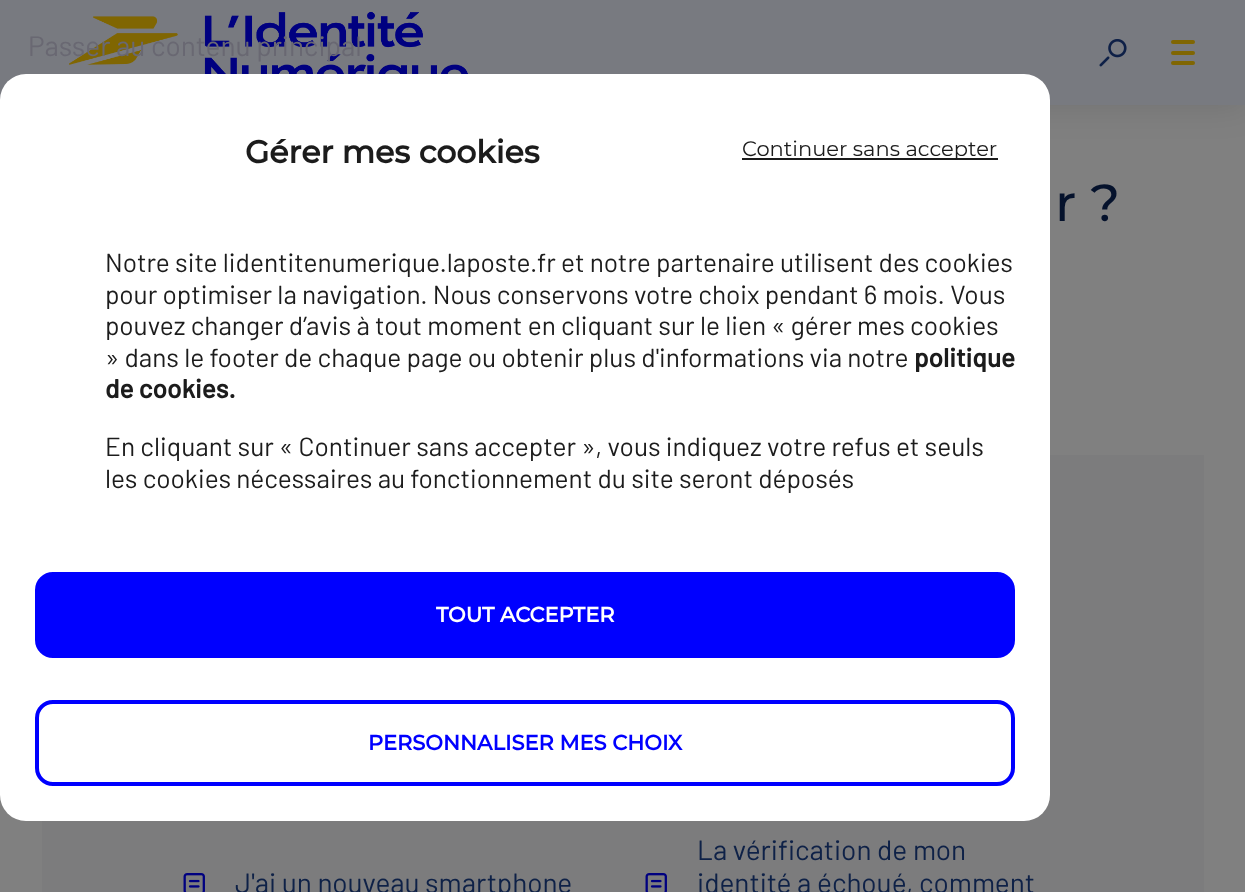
(async () => {
    const canvas = document.querySelector("canvas");
    canvas.width = 1245;
    canvas.height = 892;
    const context = canvas.getContext("2d");
    context.miterLimit = 4;
    context.fontKerning = "normal";
    function write(s, x, y, font, color) {
        context.font = font;
        context.fillStyle = color;
        context.fillText(s, x, y);
    }
    function block(x, y, w, h, color) {
        context.fillStyle = color;
        context.fillRect(x, y, w, h);
    }
    function card(x, y, w, h, r, color) {
        context.fillStyle = color;
        context.beginPath();
        context.roundRect(x, y, w, h, r);
        context.fill();
    }
    async function photo(src, x, y, w, h) {
        const img = new Image();
        img.src = src;
        await img.decode();
        context.drawImage(img, x, y, w, h);
    }

    block(0, 0, 1245, 892, "rgb(128, 128, 128)");
    context.fillStyle = "rgba(0, 0, 0, 0.12)";
    context.filter = "blur(17.5px)";
    context.beginPath();
    context.rect(0, 0, 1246, 105);
    context.fill();
    context.filter = "none";
    block(0, 0, 1245, 105, "rgb(120, 122, 128)");
    await photo("media/1.png", 69, 11, 399, 63);
    write("Passer au contenu principal", 28, 56, "28px Barlow", "rgb(105, 104, 114)");
    await photo("media/2.png", 1099, 39, 28, 28);
    card(1171, 40, 24, 4, 2, "rgb(128, 102, 3)");
    card(1171, 51, 24, 4, 2, "rgb(128, 102, 3)");
    card(1171, 61, 24, 4, 2, "rgb(128, 102, 3)");
    write("r ?", 1055, 221, "500 52px Montserrat", "rgb(5, 18, 44)");
    block(42, 455, 1162, 437, "rgb(124, 124, 125)");
    await photo("media/3.png", 183, 873, 22, 19);
    write("J'ai un nouveau smartphone", 235, 893, "28px Barlow", "rgb(14, 33, 71)");
    write("La vérification de mon", 697, 860, "28px Barlow", "rgb(14, 33, 71)");
    await photo("media/3.png", 645, 873, 22, 19);
    write("identité a échoué, comment", 697, 893, "28px Barlow", "rgb(14, 33, 71)");
    card(0, 74, 1050, 747, 26, "rgb(255, 255, 255)");
    write("Gérer mes cookies", 245, 163, "bold 31.5px Montserrat", "rgb(28, 28, 28)");
    write("Notre site lidentitenumerique.laposte.fr et notre partenaire utilisent des cookies", 105, 272, "26.25px Barlow", "rgb(28, 28, 28)");
    write("pour optimiser la navigation. Nous conservons votre choix pendant 6 mois. Vous", 105, 304, "26.25px Barlow", "rgb(28, 28, 28)");
    write("pouvez changer d’avis à tout moment en cliquant sur le lien « gérer mes cookies", 105, 335, "26.25px Barlow", "rgb(28, 28, 28)");
    write("» dans le footer de chaque page ou obtenir plus d'informations via notre", 105, 367, "26.25px Barlow", "rgb(28, 28, 28)");
    write("politique", 914, 367, "bold 26.25px Barlow", "rgb(28, 28, 28)");
    write("de cookies.", 105, 398, "bold 26.25px Barlow", "rgb(28, 28, 28)");
    write("En cliquant sur « Continuer sans accepter », vous indiquez votre refus et seuls", 105, 456, "26.25px Barlow", "rgb(28, 28, 28)");
    write("les cookies nécessaires au fonctionnement du site seront déposés", 105, 488, "26.25px Barlow", "rgb(28, 28, 28)");
    block(742, 158, 256, 2, "rgb(28, 28, 28)");
    write("Continuer sans accepter", 742, 156, "21px Montserrat", "rgb(28, 28, 28)");
    context.fillStyle = "rgb(0, 0, 255)";
    context.beginPath();
    context.roundRect(37, 574, 976, 82, 16);
    context.fill();
    context.strokeStyle = "rgb(0, 0, 255)";
    context.lineWidth = 4;
    context.stroke();
    write("TOUT ACCEPTER", 436, 622, "bold 21px Montserrat", "rgb(255, 255, 255)");
    context.beginPath();
    context.roundRect(37, 702, 976, 82, 16);
    context.stroke();
    write("PERSONNALISER MES CHOIX", 368, 750, "bold 21px Montserrat", "rgb(0, 0, 255)");
})();
